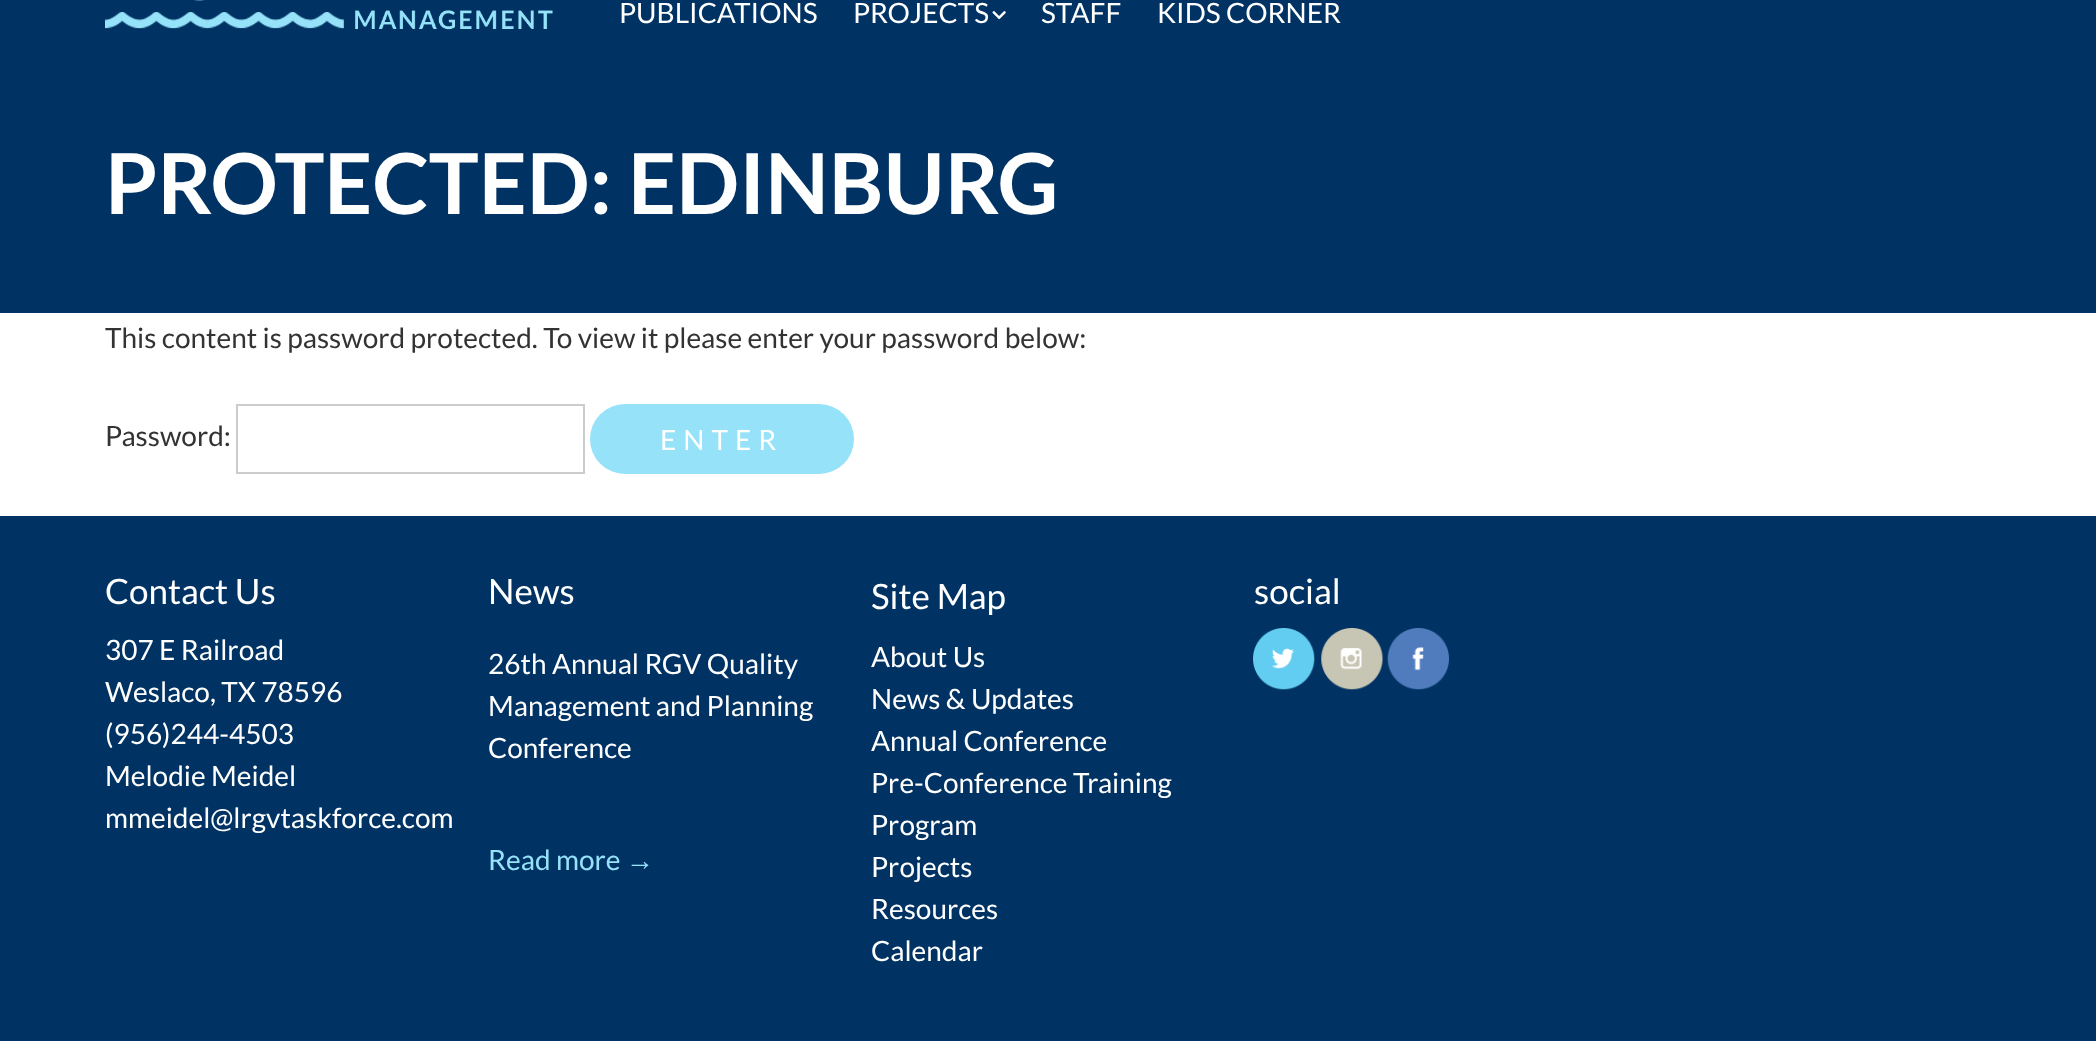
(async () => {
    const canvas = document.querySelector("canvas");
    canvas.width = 2096;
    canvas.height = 1041;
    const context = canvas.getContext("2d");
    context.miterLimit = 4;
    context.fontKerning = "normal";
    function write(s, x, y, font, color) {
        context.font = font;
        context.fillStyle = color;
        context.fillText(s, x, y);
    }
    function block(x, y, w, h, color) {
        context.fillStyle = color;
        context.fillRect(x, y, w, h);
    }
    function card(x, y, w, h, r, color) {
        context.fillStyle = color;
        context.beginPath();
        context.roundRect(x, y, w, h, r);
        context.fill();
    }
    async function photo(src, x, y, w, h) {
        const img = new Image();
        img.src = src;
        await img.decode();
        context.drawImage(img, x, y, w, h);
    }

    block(0, 0, 2096, 1041, "rgb(255, 255, 255)");
    block(0, 0, 2096, 313, "rgb(0, 51, 99)");
    await photo("media/1.png", 105, 0, 448, 30);
    write("PUBLICATIONS", 619, 23, "28px Lato", "rgb(255, 255, 255)");
    write("PROJECTS", 853, 23, "28px Lato", "rgb(255, 255, 255)");
    await photo("media/2.png", 992, 11, 14, 9);
    write("STAFF", 1041, 23, "28px Lato", "rgb(255, 255, 255)");
    write("KIDS CORNER", 1157, 23, "28px Lato", "rgb(255, 255, 255)");
    write("PROTECTED: EDINBURG", 105, 214, "bold 84px Lato", "rgb(255, 255, 255)");
    write("This content is password protected. To view it please enter your password below:", 105, 348, "28px Lato", "rgb(51, 51, 51)");
    write("Password:", 105, 446, "28px Lato", "rgb(51, 51, 51)");
    context.strokeStyle = "rgb(204, 204, 204)";
    context.lineWidth = 2;
    context.strokeRect(237, 405, 347, 68);
    card(590, 404, 264, 70, 35, "rgb(149, 226, 249)");
    context.letterSpacing = "7px";
    write("ENTER", 660, 450, "28px Lato", "rgb(255, 255, 255)");
    block(0, 516, 2096, 525, "rgb(0, 51, 99)");
    context.letterSpacing = "0px";
    write("Contact Us", 105, 604, "35px Lato", "rgb(255, 255, 255)");
    write("307 E Railroad", 105, 660, "28px Lato", "rgb(255, 255, 255)");
    write("Weslaco, TX 78596", 105, 702, "28px Lato", "rgb(255, 255, 255)");
    write("(956)244-4503", 105, 744, "28px Lato", "rgb(255, 255, 255)");
    write("Melodie Meidel", 105, 786, "28px Lato", "rgb(255, 255, 255)");
    write("mmeidel@lrgvtaskforce.com", 105, 828, "28px Lato", "rgb(255, 255, 255)");
    write("News", 488, 604, "35px Lato", "rgb(255, 255, 255)");
    write("26th Annual RGV Quality", 488, 674, "28px Lato", "rgb(255, 255, 255)");
    write("Management and Planning", 488, 716, "28px Lato", "rgb(255, 255, 255)");
    write("Conference", 488, 758, "28px Lato", "rgb(255, 255, 255)");
    write("Read more", 488, 870, "28px Lato", "rgb(149, 226, 249)");
    write("→", 626, 870, "28px Liberation Sans", "rgb(149, 226, 249)");
    write("Site Map", 871, 609, "35px Lato", "rgb(255, 255, 255)");
    write("About Us", 871, 667, "28px Lato", "rgb(255, 255, 255)");
    write("News & Updates", 871, 709, "28px Lato", "rgb(255, 255, 255)");
    write("Annual Conference", 871, 751, "28px Lato", "rgb(255, 255, 255)");
    write("Pre-Conference Training", 871, 793, "28px Lato", "rgb(255, 255, 255)");
    write("Program", 871, 835, "28px Lato", "rgb(255, 255, 255)");
    write("Projects", 871, 877, "28px Lato", "rgb(255, 255, 255)");
    write("Resources", 871, 919, "28px Lato", "rgb(255, 255, 255)");
    write("Calendar", 871, 961, "28px Lato", "rgb(255, 255, 255)");
    write("social", 1254, 604, "35px Lato", "rgb(255, 255, 255)");
    await photo("media/3.png", 1253, 628, 62, 62);
    await photo("media/4.png", 1321, 628, 62, 62);
    await photo("media/5.png", 1387, 628, 62, 62);
})();
